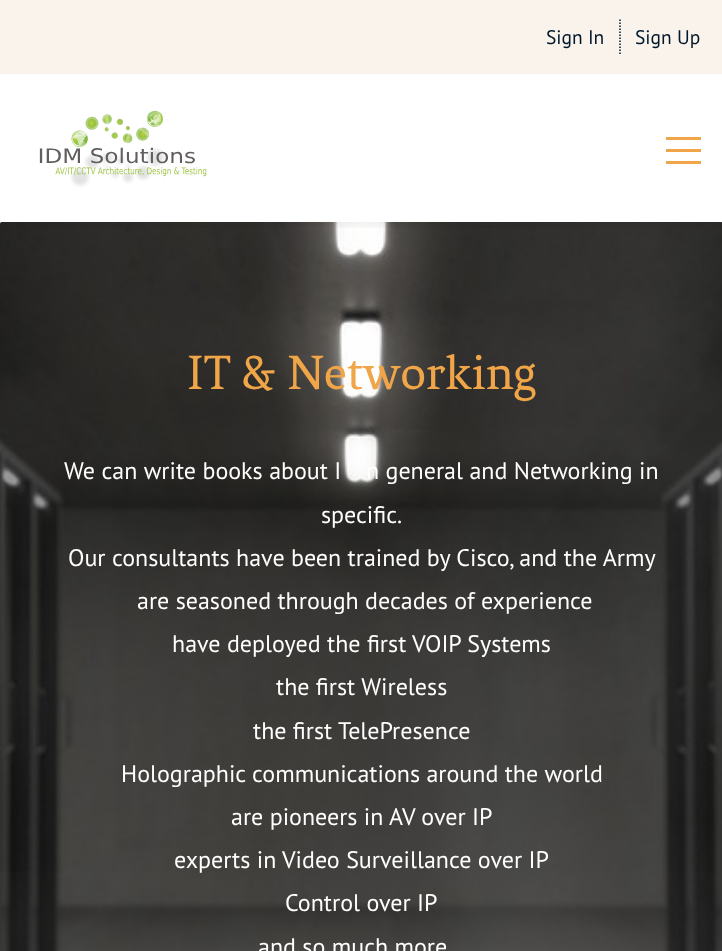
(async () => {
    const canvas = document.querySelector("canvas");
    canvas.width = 722;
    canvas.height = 951;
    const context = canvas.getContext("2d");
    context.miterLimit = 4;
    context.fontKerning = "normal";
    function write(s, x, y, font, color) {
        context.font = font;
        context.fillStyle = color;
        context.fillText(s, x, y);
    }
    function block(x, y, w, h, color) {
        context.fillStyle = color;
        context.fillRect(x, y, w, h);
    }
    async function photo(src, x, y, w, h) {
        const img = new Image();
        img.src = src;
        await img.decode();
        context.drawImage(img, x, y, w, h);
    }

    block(0, 0, 722, 951, "rgb(255, 255, 255)");
    await photo("media/2.png", 0, 222, 722, 729);
    context.save();
    context.beginPath();
    context.rect(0, 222, 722, 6);
    context.clip();
    context.fillStyle = "rgba(0, 0, 0, 0.05)";
    context.filter = "blur(4px)";
    context.beginPath();
    context.rect(0, 5, 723, 222);
    context.fill();
    context.filter = "none";
    context.restore();
    block(0, 0, 722, 74, "rgb(249, 243, 235)");
    write("Sign In", 546, 44, "19.5px PT Sans", "rgb(2, 23, 44)");
    context.beginPath();
    context.moveTo(620, 19.5);
    context.lineTo(620, 54);
    context.strokeStyle = "rgb(2, 23, 44)";
    context.lineWidth = 1.5;
    context.setLineDash([1.5, 1.5]);
    context.stroke();
    write("Sign Up", 635, 44, "19.5px PT Sans", "rgb(2, 23, 44)");
    await photo("media/1.png", 39, 110, 168, 77);
    block(666, 137, 35, 3, "rgb(239, 165, 72)");
    block(666, 149, 35, 3, "rgb(239, 165, 72)");
    block(666, 161, 35, 3, "rgb(239, 165, 72)");
    write("IT & Networking", 187, 389, "51px Fenix", "rgb(239, 165, 72)");
    write("We can write books about I", 64, 479, "24px PT Sans", "rgb(255, 255, 255)");
    write("n general and Networking in", 366, 479, "24px PT Sans", "rgb(255, 255, 255)");
    write("specific.", 321, 523, "24px PT Sans", "rgb(255, 255, 255)");
    write("Our consultants have been trained by Cisco, and the Army", 68, 566, "24px PT Sans", "rgb(255, 255, 255)");
    write("are seasoned through decades of experience", 137, 609, "24px PT Sans", "rgb(255, 255, 255)");
    write("have deployed the first VOIP Systems", 172, 652, "24px PT Sans", "rgb(255, 255, 255)");
    write("the first Wireless", 276, 695, "24px PT Sans", "rgb(255, 255, 255)");
    write("the first TelePresence", 253, 739, "24px PT Sans", "rgb(255, 255, 255)");
    write("Holographic communications around the world", 121, 782, "24px PT Sans", "rgb(255, 255, 255)");
    write("are pioneers in AV over IP", 231, 825, "24px PT Sans", "rgb(255, 255, 255)");
    write("experts in Video Surveillance over IP", 174, 868, "24px PT Sans", "rgb(255, 255, 255)");
    write("Control over IP", 285, 911, "24px PT Sans", "rgb(255, 255, 255)");
    write("and so much more", 258, 955, "24px PT Sans", "rgb(255, 255, 255)");
})();
